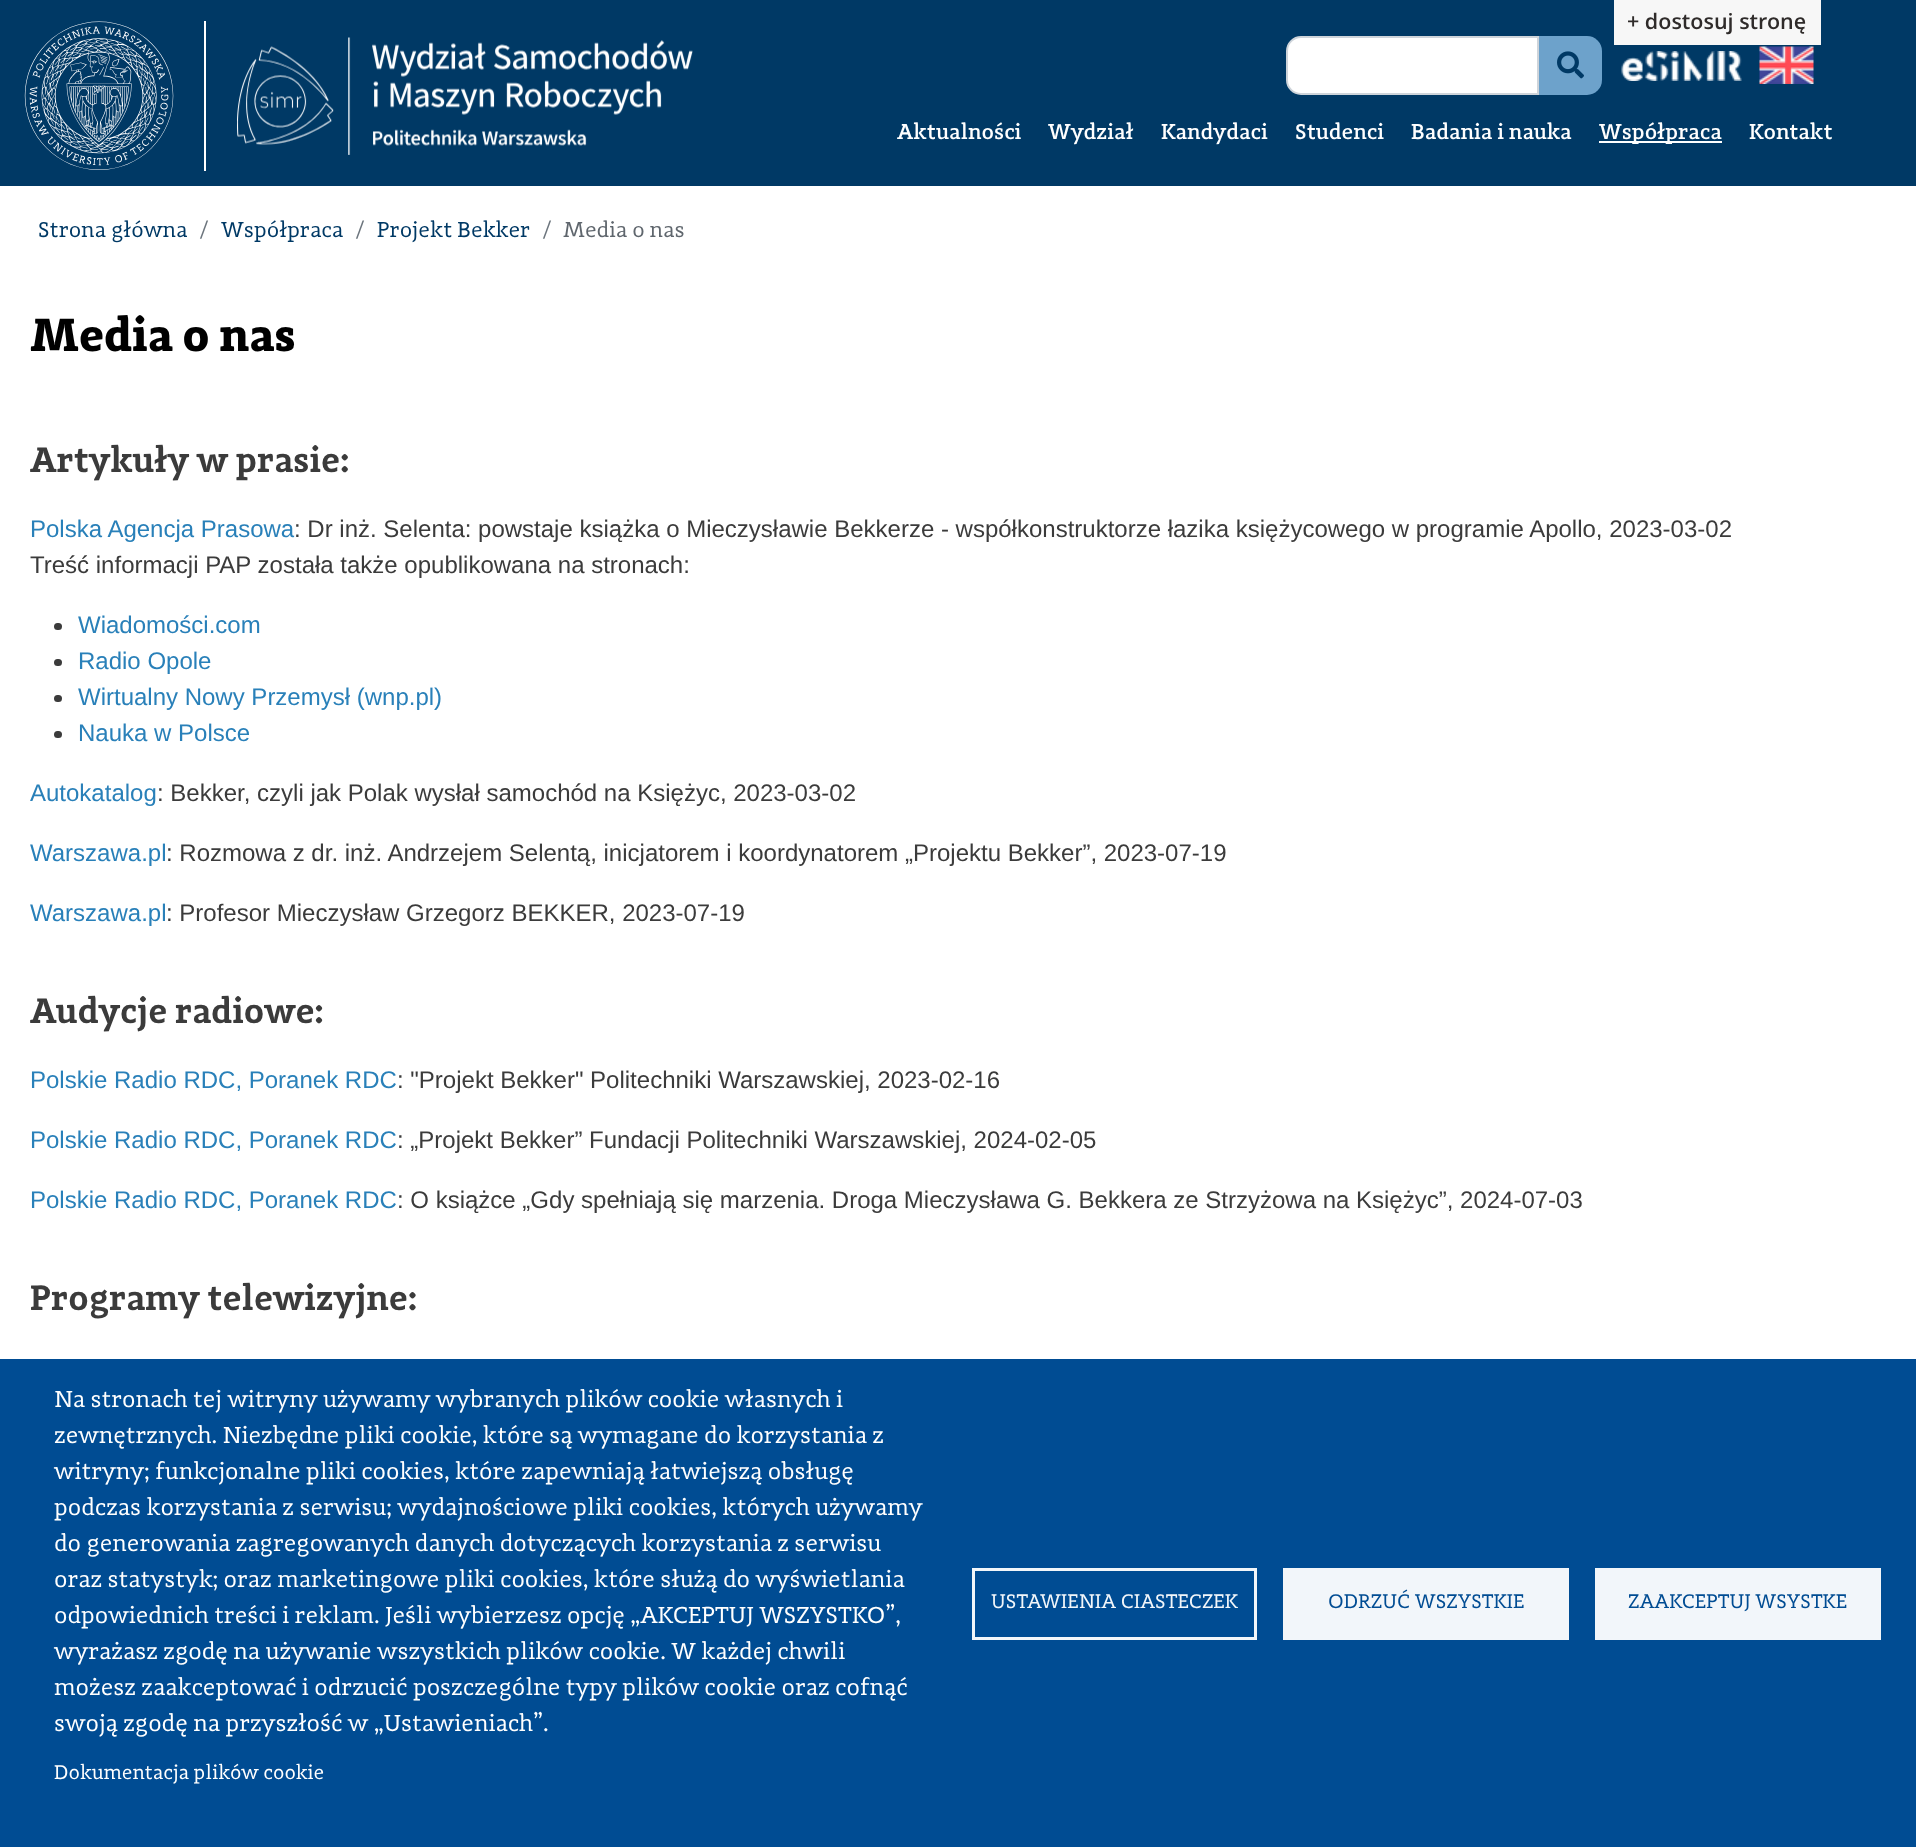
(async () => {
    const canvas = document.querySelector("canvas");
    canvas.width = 1916;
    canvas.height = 1847;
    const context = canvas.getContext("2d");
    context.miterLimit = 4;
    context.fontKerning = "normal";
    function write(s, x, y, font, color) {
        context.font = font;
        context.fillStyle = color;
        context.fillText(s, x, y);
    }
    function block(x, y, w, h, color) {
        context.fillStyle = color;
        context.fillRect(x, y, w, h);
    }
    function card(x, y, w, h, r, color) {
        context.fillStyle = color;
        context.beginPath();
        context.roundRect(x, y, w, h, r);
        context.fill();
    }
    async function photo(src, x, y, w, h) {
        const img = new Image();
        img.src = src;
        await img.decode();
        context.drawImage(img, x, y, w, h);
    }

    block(0, 0, 1916, 1847, "rgb(255, 255, 255)");
    block(0, 0, 1916, 186, "rgb(0, 57, 101)");
    block(1614, 0, 207, 45, "rgb(247, 247, 247)");
    write("+ dostosuj stronę", 1627, 29, "600 21.5px Open Sans", "rgb(47, 43, 42)");
    block(204, 21, 2, 150, "rgb(255, 255, 255)");
    await photo("media/1.png", 24, 21, 150, 149);
    await photo("media/2.png", 237, 37, 456, 118);
    context.beginPath();
    context.roundRect(1287, 37, 251, 57, [14, 0, 0, 14]);
    context.fill();
    context.strokeStyle = "rgb(206, 212, 218)";
    context.lineWidth = 2;
    context.stroke();
    context.fillStyle = "rgb(109, 162, 203)";
    context.beginPath();
    context.roundRect(1539, 36, 63, 59, [0, 15, 15, 0]);
    context.fill();
    await photo("media/3.png", 1557, 51, 27, 28);
    await photo("media/4.png", 1621, 51, 121, 30);
    await photo("media/5.png", 1759, 46, 55, 38);
    write("Aktualności", 897, 139, "500 22.25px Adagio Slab", "rgb(255, 255, 255)");
    write("Wydział", 1048, 139, "500 22.25px Adagio Slab", "rgb(255, 255, 255)");
    write("Kandydaci", 1161, 139, "500 22.25px Adagio Slab", "rgb(255, 255, 255)");
    write("Studenci", 1295, 139, "500 22.25px Adagio Slab", "rgb(255, 255, 255)");
    write("Badania i nauka", 1411, 139, "500 22.25px Adagio Slab", "rgb(255, 255, 255)");
    block(1599, 141, 123, 2, "rgb(255, 255, 255)");
    write("Współpraca", 1599, 139, "500 22.25px Adagio Slab", "rgb(255, 255, 255)");
    write("Kontakt", 1749, 139, "500 22.25px Adagio Slab", "rgb(255, 255, 255)");
    block(0, 1359, 1916, 488, "rgb(0, 76, 147)");
    write("Na stronach tej witryny używamy wybranych plików cookie własnych i", 54, 1407, "24px Adagio Slab", "rgb(255, 255, 255)");
    write("zewnętrznych. Niezbędne pliki cookie, które są wymagane do korzystania z", 54, 1443, "24px Adagio Slab", "rgb(255, 255, 255)");
    write("witryny; funkcjonalne pliki cookies, które zapewniają łatwiejszą obsługę", 54, 1479, "24px Adagio Slab", "rgb(255, 255, 255)");
    write("podczas korzystania z serwisu; wydajnościowe pliki cookies, których używamy", 54, 1515, "24px Adagio Slab", "rgb(255, 255, 255)");
    write("do generowania zagregowanych danych dotyczących korzystania z serwisu", 54, 1551, "24px Adagio Slab", "rgb(255, 255, 255)");
    write("oraz statystyk; oraz marketingowe pliki cookies, które służą do wyświetlania", 54, 1587, "24px Adagio Slab", "rgb(255, 255, 255)");
    write("odpowiednich treści i reklam. Jeśli wybierzesz opcję „AKCEPTUJ WSZYSTKO”,", 54, 1623, "24px Adagio Slab", "rgb(255, 255, 255)");
    write("wyrażasz zgodę na używanie wszystkich plików cookie. W każdej chwili", 54, 1659, "24px Adagio Slab", "rgb(255, 255, 255)");
    write("możesz zaakceptować i odrzucić poszczególne typy plików cookie oraz cofnąć", 54, 1695, "24px Adagio Slab", "rgb(255, 255, 255)");
    write("swoją zgodę na przyszłość w „Ustawieniach”.", 54, 1731, "24px Adagio Slab", "rgb(255, 255, 255)");
    write("Dokumentacja plików cookie", 54, 1779, "20.4px Adagio Slab", "rgb(255, 255, 255)");
    context.strokeStyle = "rgb(242, 246, 250)";
    context.lineWidth = 3;
    context.strokeRect(973.5, 1569.5, 282, 69);
    write("USTAWIENIA CIASTECZEK", 991, 1608, "20.4px Adagio Slab", "rgb(242, 246, 250)");
    block(1283, 1568, 286, 72, "rgb(242, 246, 250)");
    write("ODRZUĆ WSZYSTKIE", 1328, 1608, "20.4px Adagio Slab", "rgb(0, 76, 147)");
    block(1595, 1568, 286, 72, "rgb(242, 246, 250)");
    write("ZAAKCEPTUJ WSYSTKE", 1628, 1608, "20.4px Adagio Slab", "rgb(0, 76, 147)");
    write("Strona główna", 38, 237, "22.25px Adagio Slab", "rgb(0, 57, 101)");
    write("/", 199, 237, "22.25px Adagio Slab", "rgb(108, 117, 125)");
    write("Współpraca", 221, 237, "22.25px Adagio Slab", "rgb(0, 57, 101)");
    write("/", 355, 237, "22.25px Adagio Slab", "rgb(108, 117, 125)");
    write("Projekt Bekker", 377, 237, "22.25px Adagio Slab", "rgb(0, 57, 101)");
    write("/", 542, 237, "22.25px Adagio Slab", "rgb(108, 117, 125)");
    write("Media o nas", 563, 237, "22.25px Adagio Slab", "rgb(95, 102, 109)");
    write("Media o nas", 30, 351, "bold 48px Adagio Slab", "rgb(0, 0, 0)");
    write("Artykuły w prasie:", 30, 472, "600 36.5px Adagio Slab", "rgb(59, 59, 59)");
    write("Polska Agencja Prasowa", 30, 537, "24px Liberation Sans", "rgb(41, 128, 185)");
    write(": Dr inż. Selenta: powstaje książka o Mieczysławie Bekkerze - współkonstruktorze łazika księżycowego w programie Apollo, 2023-03-02", 294, 537, "24px Liberation Sans", "rgb(59, 59, 59)");
    write("Treść informacji PAP została także opublikowana na stronach:", 30, 573, "24px Liberation Sans", "rgb(59, 59, 59)");
    card(54, 623, 8, 7, 3.5, "rgb(59, 59, 59)");
    write("Wiadomości.com", 78, 633, "24px Liberation Sans", "rgb(41, 128, 185)");
    card(54, 659, 8, 7, 3.5, "rgb(59, 59, 59)");
    write("Radio Opole", 78, 669, "24px Liberation Sans", "rgb(41, 128, 185)");
    card(54, 695, 8, 7, 3.5, "rgb(59, 59, 59)");
    write("Wirtualny Nowy Przemysł (wnp.pl)", 78, 705, "24px Liberation Sans", "rgb(41, 128, 185)");
    card(54, 731, 8, 7, 3.5, "rgb(59, 59, 59)");
    write("Nauka w Polsce", 78, 741, "24px Liberation Sans", "rgb(41, 128, 185)");
    write("Autokatalog", 30, 801, "24px Liberation Sans", "rgb(41, 128, 185)");
    write(": Bekker, czyli jak Polak wysłał samochód na Księżyc, 2023-03-02", 157, 801, "24px Liberation Sans", "rgb(59, 59, 59)");
    write("Warszawa.pl", 30, 861, "24px Liberation Sans", "rgb(41, 128, 185)");
    write(": Rozmowa z dr. inż. Andrzejem Selentą, inicjatorem i koordynatorem „Projektu Bekker”, 2023-07-19", 166, 861, "24px Liberation Sans", "rgb(59, 59, 59)");
    write("Warszawa.pl", 30, 921, "24px Liberation Sans", "rgb(41, 128, 185)");
    write(": Profesor Mieczysław Grzegorz BEKKER, 2023-07-19", 166, 921, "24px Liberation Sans", "rgb(59, 59, 59)");
    write("Audycje radiowe:", 30, 1023, "600 36.5px Adagio Slab", "rgb(59, 59, 59)");
    write("Polskie Radio RDC, Poranek RDC", 30, 1088, "24px Liberation Sans", "rgb(41, 128, 185)");
    write(": \"Projekt Bekker\" Politechniki Warszawskiej, 2023-02-16", 397, 1088, "24px Liberation Sans", "rgb(59, 59, 59)");
    write("Polskie Radio RDC, Poranek RDC", 30, 1148, "24px Liberation Sans", "rgb(41, 128, 185)");
    write(": „Projekt Bekker” Fundacji Politechniki Warszawskiej, 2024-02-05", 397, 1148, "24px Liberation Sans", "rgb(59, 59, 59)");
    write("Polskie Radio RDC, Poranek RDC", 30, 1208, "24px Liberation Sans", "rgb(41, 128, 185)");
    write(": O książce „Gdy spełniają się marzenia. Droga Mieczysława G. Bekkera ze Strzyżowa na Księżyc”, 2024-07-03", 397, 1208, "24px Liberation Sans", "rgb(59, 59, 59)");
    write("Programy telewizyjne:", 30, 1310, "600 36.5px Adagio Slab", "rgb(59, 59, 59)");
})();
